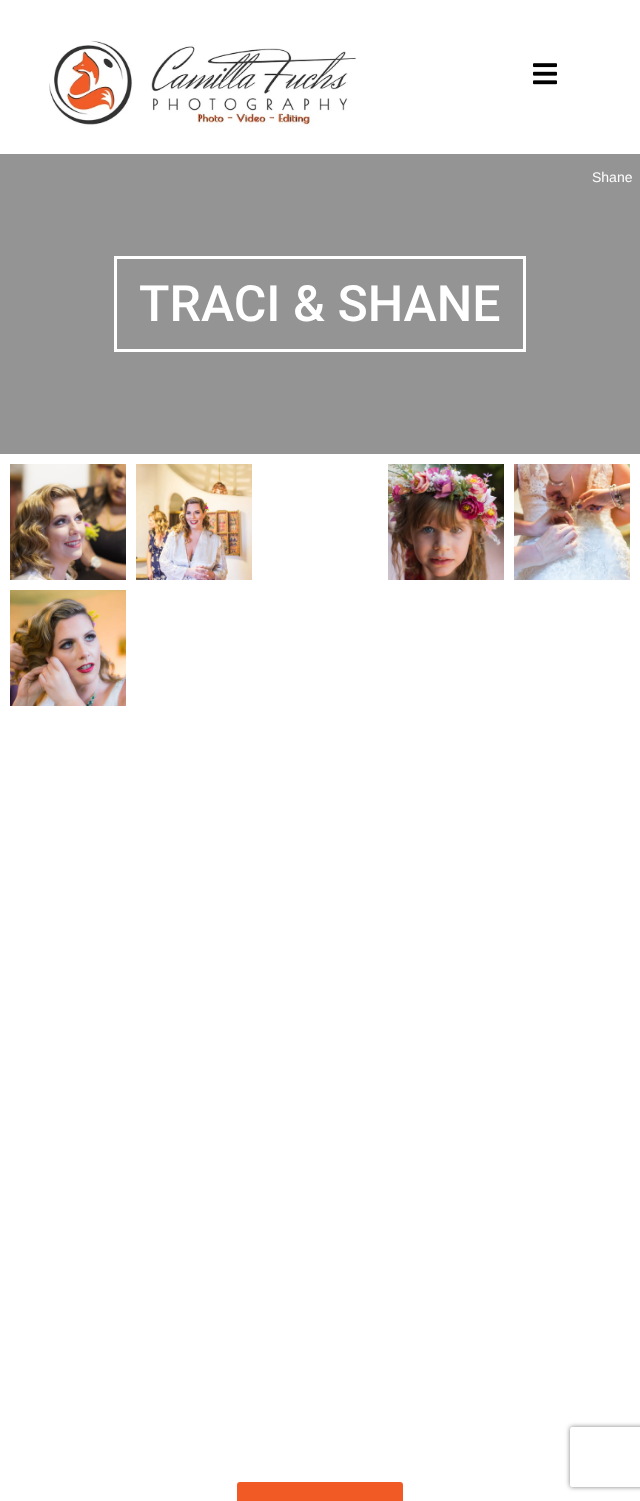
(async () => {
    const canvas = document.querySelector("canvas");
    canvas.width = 640;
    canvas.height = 1501;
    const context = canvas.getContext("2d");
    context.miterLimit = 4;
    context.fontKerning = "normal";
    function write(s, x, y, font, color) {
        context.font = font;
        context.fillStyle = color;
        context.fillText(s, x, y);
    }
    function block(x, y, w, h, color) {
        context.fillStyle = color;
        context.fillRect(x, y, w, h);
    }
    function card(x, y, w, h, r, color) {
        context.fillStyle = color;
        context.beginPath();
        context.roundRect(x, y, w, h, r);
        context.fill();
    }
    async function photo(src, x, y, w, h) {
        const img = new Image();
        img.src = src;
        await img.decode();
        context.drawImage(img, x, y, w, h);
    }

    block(0, 0, 640, 1501, "rgb(255, 255, 255)");
    await photo("media/1.png", 49, 40, 307, 86);
    await photo("media/2.png", 533, 63, 24, 22);
    block(0, 154, 640, 300, "rgb(149, 148, 148)");
    write("Shane", 592, 182, "14px Liberation Sans", "rgb(255, 255, 255)");
    context.strokeStyle = "rgb(255, 255, 255)";
    context.lineWidth = 3;
    context.strokeRect(115.5, 257.5, 409, 93);
    write("TRACI & SHANE", 139, 321, "500 50px Roboto", "rgb(255, 255, 255)");
    await photo("media/3.png", 10, 464, 116, 116);
    await photo("media/4.png", 136, 464, 116, 116);
    await photo("media/5.png", 388, 464, 116, 116);
    await photo("media/6.png", 514, 464, 116, 116);
    await photo("media/7.png", 10, 590, 116, 116);
    card(237, 1482, 166, 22, 3, "rgb(241, 90, 36)");
    context.save();
    context.beginPath();
    context.moveTo(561, 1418);
    context.lineTo(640, 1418);
    context.lineTo(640, 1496);
    context.lineTo(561, 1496);
    context.closePath();
    context.moveTo(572, 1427);
    context.lineTo(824, 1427);
    context.bezierCurveTo(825, 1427, 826, 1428, 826, 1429);
    context.lineTo(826, 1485);
    context.bezierCurveTo(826, 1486, 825, 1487, 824, 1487);
    context.lineTo(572, 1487);
    context.bezierCurveTo(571, 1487, 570, 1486, 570, 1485);
    context.lineTo(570, 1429);
    context.bezierCurveTo(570, 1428, 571, 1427, 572, 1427);
    context.closePath();
    context.clip("evenodd");
    context.fillStyle = "rgb(128, 128, 128)";
    context.filter = "blur(2.5px)";
    context.beginPath();
    context.roundRect(570, 1427, 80, 60, 2);
    context.fill();
    context.filter = "none";
    context.restore();
})();
